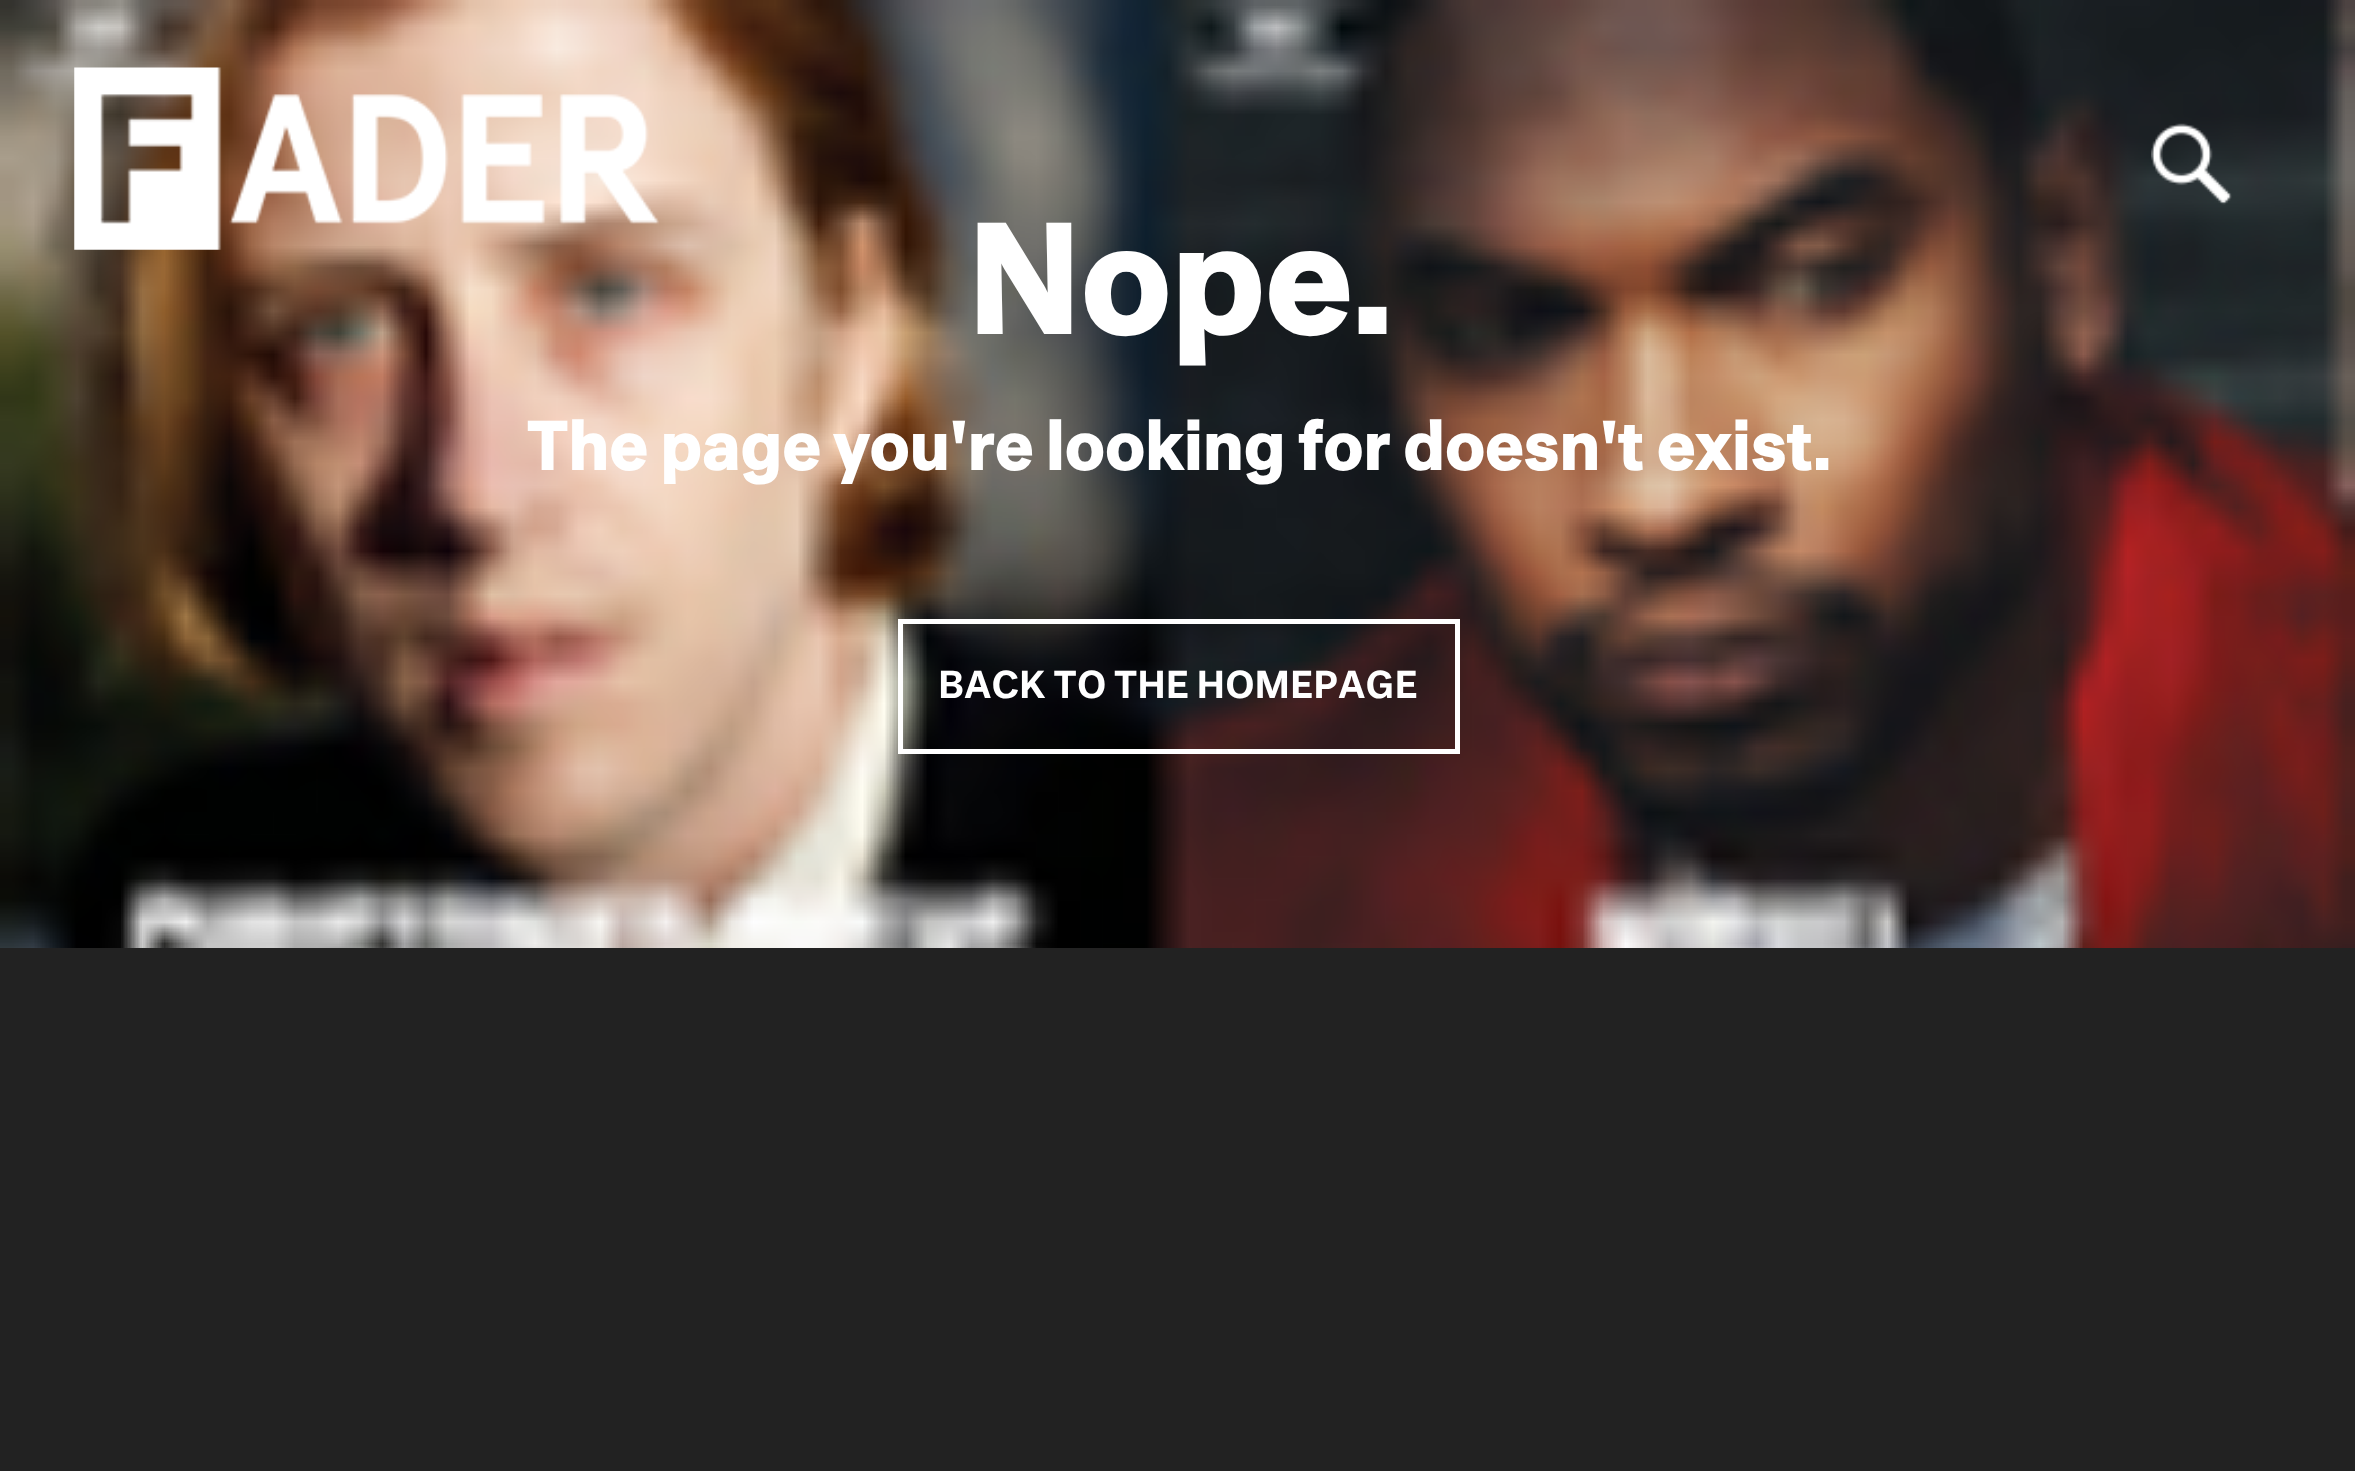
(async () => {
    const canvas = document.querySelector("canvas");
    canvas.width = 2355;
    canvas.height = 1471;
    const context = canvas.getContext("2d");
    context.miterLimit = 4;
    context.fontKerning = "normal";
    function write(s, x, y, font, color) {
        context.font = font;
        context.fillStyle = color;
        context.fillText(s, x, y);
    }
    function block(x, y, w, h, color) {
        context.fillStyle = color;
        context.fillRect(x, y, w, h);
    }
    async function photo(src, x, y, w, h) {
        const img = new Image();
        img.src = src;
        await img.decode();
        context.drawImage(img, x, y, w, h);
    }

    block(0, 0, 2355, 1471, "rgb(34, 34, 34)");
    await photo("media/1.png", 0, 0, 2355, 948);
    await photo("media/2.png", 74, 67, 585, 183);
    await photo("media/3.png", 2151, 123, 81, 82);
    write("Nope.", 966, 334, "bold 142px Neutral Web", "rgb(255, 255, 255)");
    write("The page you're looking for doesn't exist.", 526, 470, "bold 63px Neutral Web", "rgb(255, 255, 255)");
    context.strokeStyle = "rgb(255, 255, 255)";
    context.lineWidth = 5;
    context.strokeRect(900.5, 621.5, 557, 130);
    write("BACK TO THE HOMEPAGE", 938, 698, "500 36px Neutral Web", "rgb(255, 255, 255)");
})();
